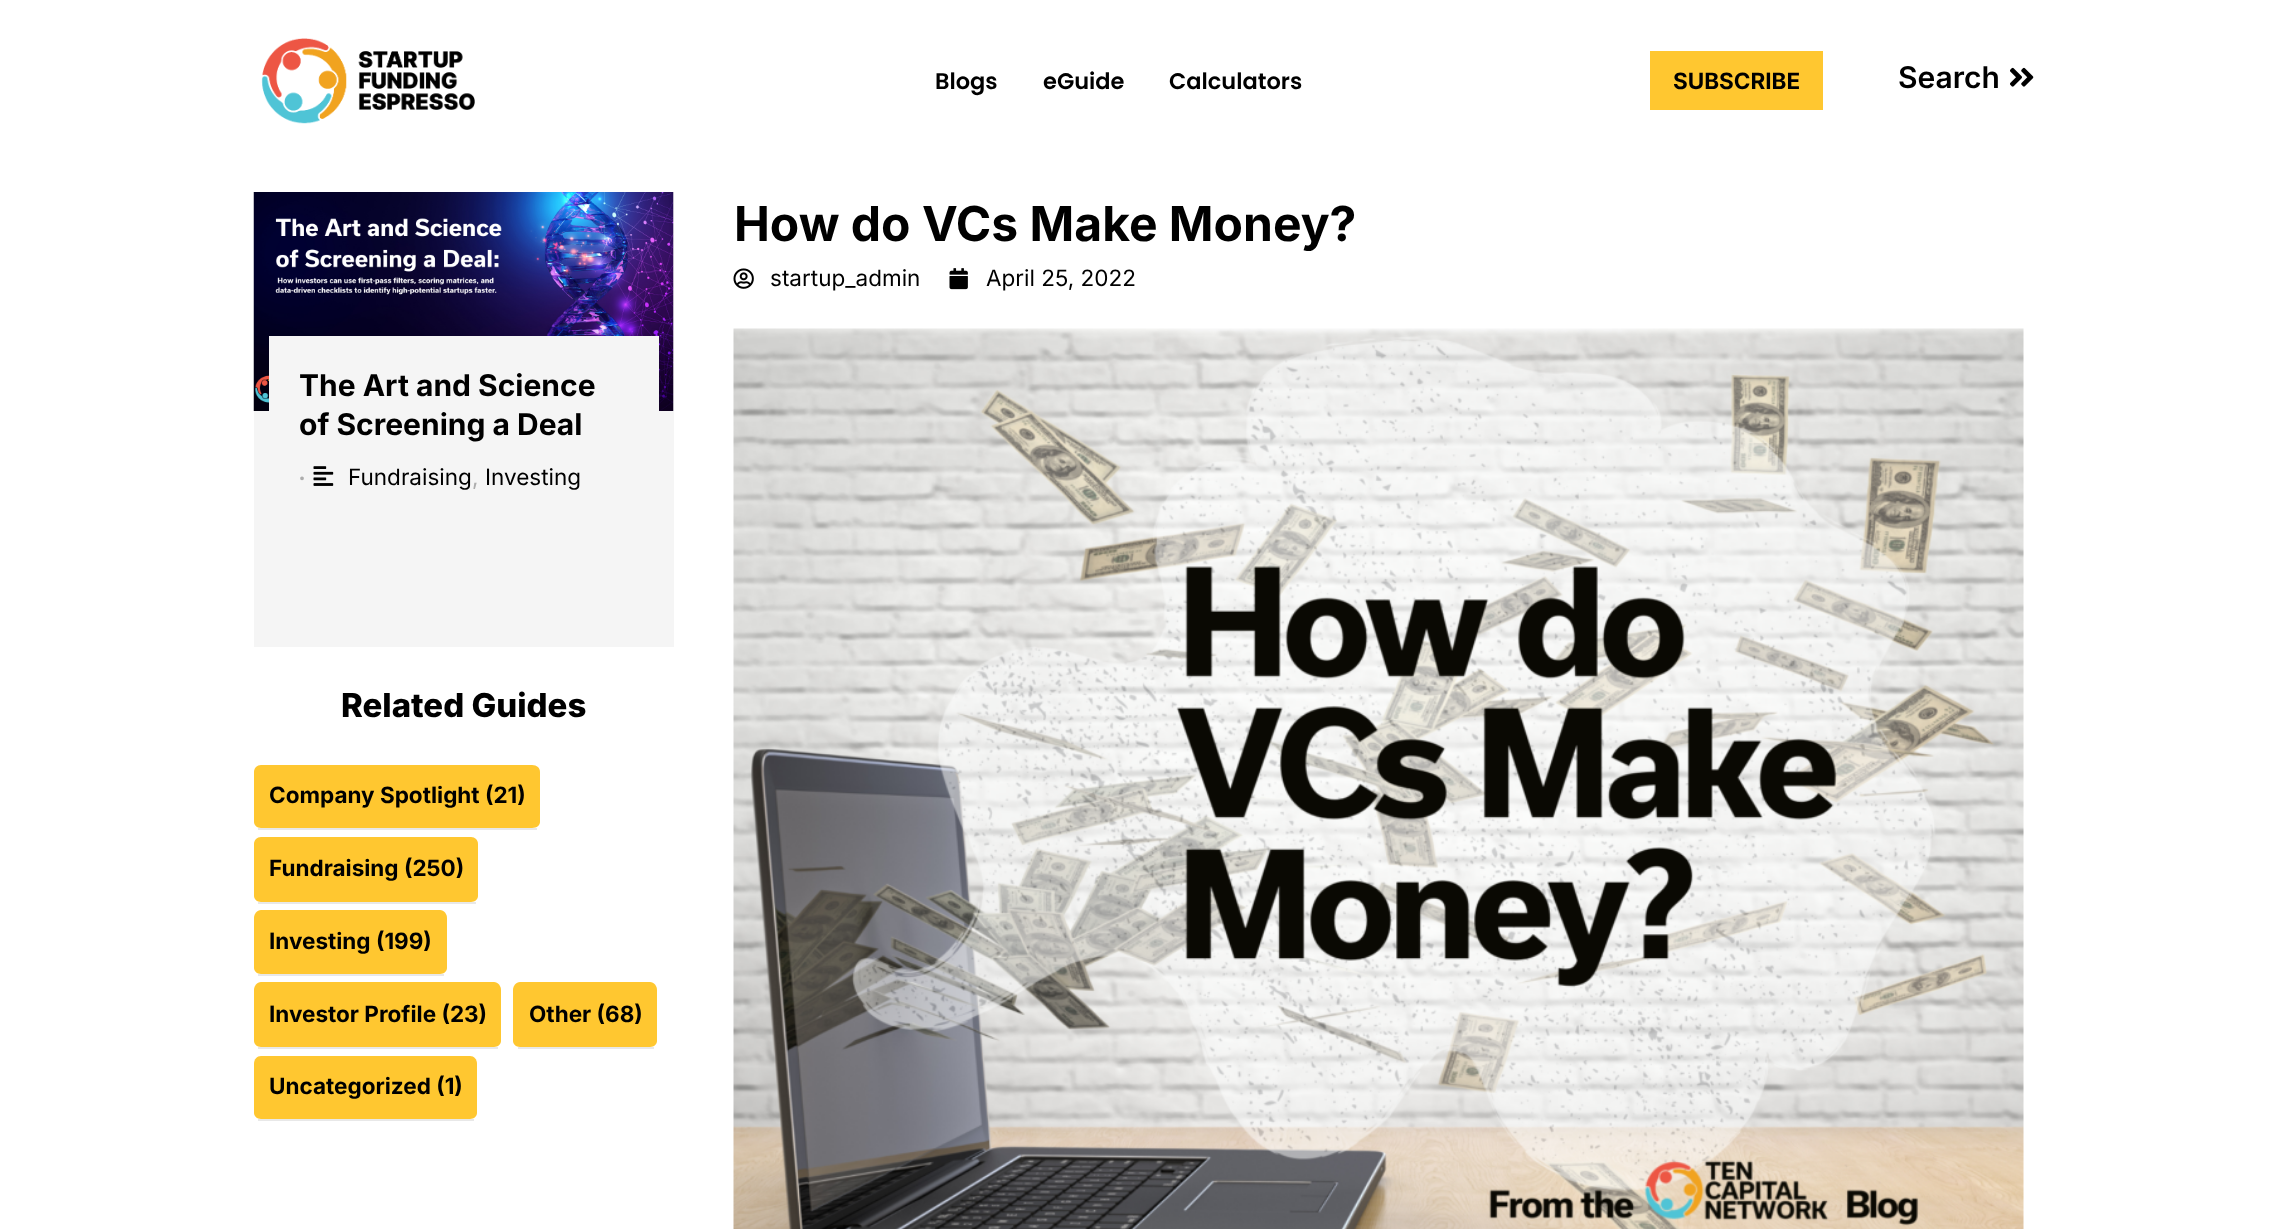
(async () => {
    const canvas = document.querySelector("canvas");
    canvas.width = 2276;
    canvas.height = 1229;
    const context = canvas.getContext("2d");
    context.miterLimit = 4;
    context.fontKerning = "normal";
    function write(s, x, y, font, color) {
        context.font = font;
        context.fillStyle = color;
        context.fillText(s, x, y);
    }
    function block(x, y, w, h, color) {
        context.fillStyle = color;
        context.fillRect(x, y, w, h);
    }
    async function photo(src, x, y, w, h) {
        const img = new Image();
        img.src = src;
        await img.decode();
        context.drawImage(img, x, y, w, h);
    }

    block(0, 0, 2276, 1229, "rgb(255, 255, 255)");
    await photo("media/1.png", 261, 38, 214, 86);
    write("Blogs", 935, 89, "600 22.5px Poppins", "rgb(0, 0, 0)");
    write("eGuide", 1043, 89, "600 22.5px Poppins", "rgb(0, 0, 0)");
    write("Calculators", 1169, 89, "600 22.5px Poppins", "rgb(0, 0, 0)");
    block(1650, 51, 173, 59, "rgb(255, 199, 48)");
    write("SUBSCRIBE", 1673, 89, "bold 22.5px Inter", "rgb(0, 0, 0)");
    write("Search", 1898, 88, "600 30px Inter", "rgb(0, 0, 0)");
    await photo("media/2.png", 2010, 67, 24, 20);
    write("How do VCs Make Money?", 734, 241, "bold 48px Inter", "rgb(0, 0, 0)");
    await photo("media/3.png", 733, 268, 21, 21);
    write("startup_admin", 770, 286, "22.5px Inter", "rgb(0, 0, 0)");
    await photo("media/4.png", 949, 268, 19, 22);
    write("April 25, 2022", 986, 286, "22.5px Inter", "rgb(0, 0, 0)");
    await photo("media/5.png", 733, 328, 1291, 901);
    block(254, 192, 420, 455, "rgb(245, 245, 245)");
    await photo("media/6.png", 253, 192, 421, 219);
    block(269, 336, 390, 75, "rgb(245, 245, 245)");
    write("The Art and Science", 299, 396, "bold 30px Inter", "rgb(0, 0, 0)");
    write("of Screening a Deal", 299, 435, "bold 30px Inter", "rgb(0, 0, 0)");
    write("•", 299, 485, "18px Roboto", "rgb(173, 173, 173)");
    await photo("media/7.png", 313, 466, 21, 20);
    write("Fundraising", 348, 485, "22.5px Inter", "rgb(0, 0, 0)");
    write(",", 472, 485, "22.5px Inter", "rgb(173, 173, 173)");
    write("Investing", 485, 485, "22.5px Inter", "rgb(0, 0, 0)");
    write("Related Guides", 341, 717, "800 33px Inter", "rgb(0, 0, 0)");
    context.fillStyle = "rgb(255, 199, 48)";
    context.beginPath();
    context.moveTo(261, 765);
    context.lineTo(532, 765);
    context.bezierCurveTo(537, 765, 540, 768, 540, 772);
    context.lineTo(540, 822);
    context.bezierCurveTo(540, 825, 537, 828, 532, 828);
    context.lineTo(261, 828);
    context.bezierCurveTo(257, 828, 254, 825, 254, 822);
    context.lineTo(254, 772);
    context.bezierCurveTo(254, 768, 257, 765, 261, 765);
    context.closePath();
    context.fill();
    block(258, 828, 279, 2, "rgb(232, 232, 232)");
    write("Company Spotlight (21)", 269, 803, "bold 22.5px Inter", "rgb(0, 0, 0)");
    context.fillStyle = "rgb(255, 199, 48)";
    context.beginPath();
    context.moveTo(261, 837);
    context.lineTo(471, 837);
    context.bezierCurveTo(475, 837, 478, 840, 478, 844);
    context.lineTo(478, 896);
    context.bezierCurveTo(478, 899, 475, 902, 471, 902);
    context.lineTo(261, 902);
    context.bezierCurveTo(257, 902, 254, 899, 254, 896);
    context.lineTo(254, 844);
    context.bezierCurveTo(254, 840, 257, 837, 261, 837);
    context.closePath();
    context.fill();
    block(258, 902, 218, 2, "rgb(232, 232, 232)");
    write("Fundraising (250)", 269, 876, "bold 22.5px Inter", "rgb(0, 0, 0)");
    context.fillStyle = "rgb(255, 199, 48)";
    context.beginPath();
    context.moveTo(261, 910);
    context.lineTo(440, 910);
    context.bezierCurveTo(444, 910, 447, 914, 447, 918);
    context.lineTo(447, 968);
    context.bezierCurveTo(447, 971, 444, 974, 440, 974);
    context.lineTo(261, 974);
    context.bezierCurveTo(257, 974, 254, 971, 254, 968);
    context.lineTo(254, 918);
    context.bezierCurveTo(254, 914, 257, 910, 261, 910);
    context.closePath();
    context.fill();
    block(258, 974, 186, 2, "rgb(232, 232, 232)");
    write("Investing (199)", 269, 949, "bold 22.5px Inter", "rgb(0, 0, 0)");
    context.fillStyle = "rgb(255, 199, 48)";
    context.beginPath();
    context.moveTo(261, 982);
    context.lineTo(494, 982);
    context.bezierCurveTo(498, 982, 501, 986, 501, 990);
    context.lineTo(501, 1041);
    context.bezierCurveTo(501, 1044, 498, 1047, 494, 1047);
    context.lineTo(261, 1047);
    context.bezierCurveTo(257, 1047, 254, 1044, 254, 1041);
    context.lineTo(254, 990);
    context.bezierCurveTo(254, 986, 257, 982, 261, 982);
    context.closePath();
    context.fill();
    block(258, 1047, 240, 2, "rgb(232, 232, 232)");
    write("Investor Profile (23)", 269, 1022, "bold 22.5px Inter", "rgb(0, 0, 0)");
    context.fillStyle = "rgb(255, 199, 48)";
    context.beginPath();
    context.moveTo(520, 982);
    context.lineTo(650, 982);
    context.bezierCurveTo(654, 982, 657, 986, 657, 990);
    context.lineTo(657, 1041);
    context.bezierCurveTo(657, 1044, 654, 1047, 650, 1047);
    context.lineTo(520, 1047);
    context.bezierCurveTo(516, 1047, 513, 1044, 513, 1041);
    context.lineTo(513, 990);
    context.bezierCurveTo(513, 986, 516, 982, 520, 982);
    context.closePath();
    context.fill();
    block(518, 1047, 136, 2, "rgb(232, 232, 232)");
    write("Other (68)", 529, 1022, "bold 22.5px Inter", "rgb(0, 0, 0)");
    context.fillStyle = "rgb(255, 199, 48)";
    context.beginPath();
    context.moveTo(261, 1056);
    context.lineTo(470, 1056);
    context.bezierCurveTo(474, 1056, 477, 1059, 477, 1064);
    context.lineTo(477, 1113);
    context.bezierCurveTo(477, 1116, 474, 1119, 470, 1119);
    context.lineTo(261, 1119);
    context.bezierCurveTo(257, 1119, 254, 1116, 254, 1113);
    context.lineTo(254, 1064);
    context.bezierCurveTo(254, 1059, 257, 1056, 261, 1056);
    context.closePath();
    context.fill();
    block(258, 1119, 216, 2, "rgb(232, 232, 232)");
    write("Uncategorized (1)", 269, 1094, "bold 22.5px Inter", "rgb(0, 0, 0)");
})();
